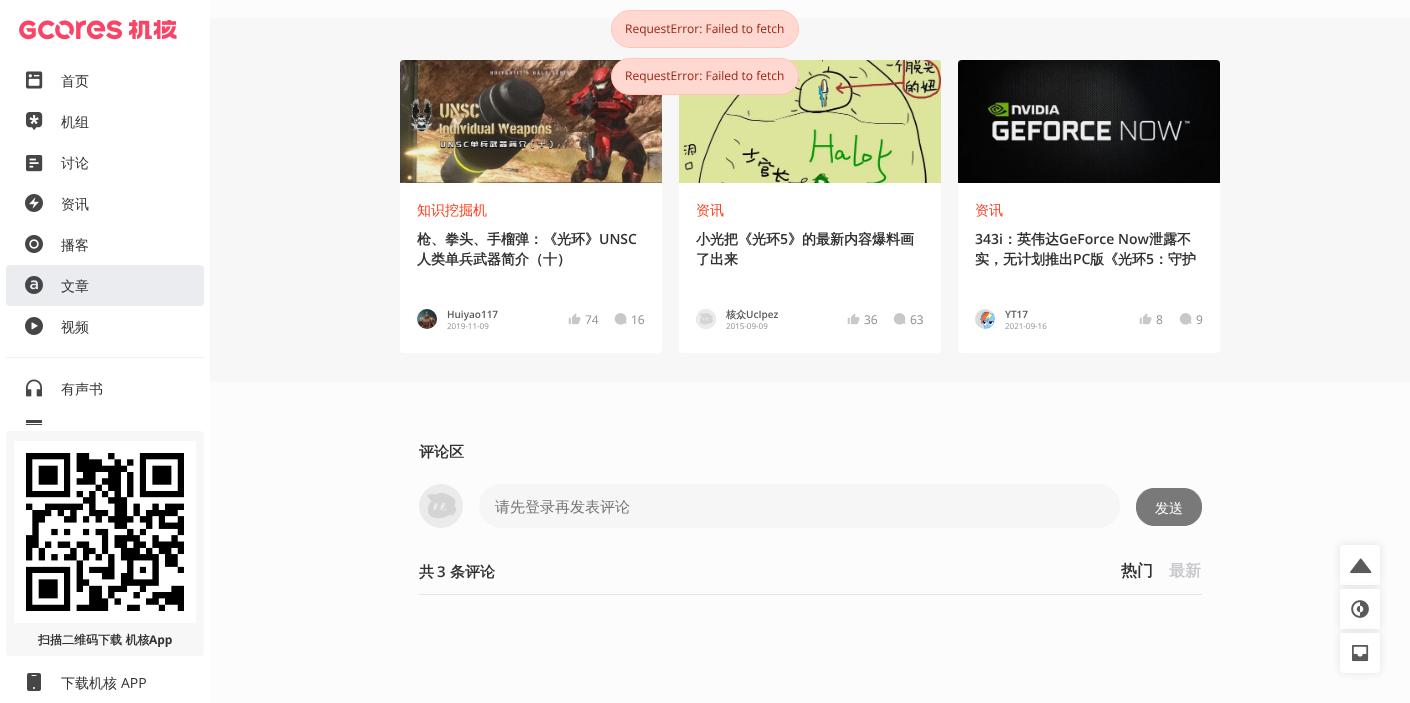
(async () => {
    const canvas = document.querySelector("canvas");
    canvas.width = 1410;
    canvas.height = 703;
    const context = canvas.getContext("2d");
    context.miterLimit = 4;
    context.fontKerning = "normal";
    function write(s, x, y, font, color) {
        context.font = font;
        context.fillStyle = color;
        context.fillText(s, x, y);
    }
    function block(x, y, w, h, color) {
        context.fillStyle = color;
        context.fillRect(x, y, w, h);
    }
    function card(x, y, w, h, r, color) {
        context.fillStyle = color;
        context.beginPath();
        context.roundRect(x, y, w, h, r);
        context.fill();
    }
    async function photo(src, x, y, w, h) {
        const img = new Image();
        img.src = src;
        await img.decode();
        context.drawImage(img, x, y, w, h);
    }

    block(0, 0, 1410, 703, "rgb(252, 252, 252)");
    block(210, 18, 1200, 364, "rgb(247, 247, 248)");
    context.fillStyle = "rgb(255, 216, 210)";
    context.beginPath();
    context.roundRect(611.5, 10.5, 187, 37, 18.5);
    context.fill();
    context.strokeStyle = "rgb(255, 197, 187)";
    context.stroke();
    write("RequestError: Failed to fetch", 625, 33, "12px Open Sans", "rgb(153, 37, 17)");
    card(400, 60, 262, 293, 4, "rgb(255, 255, 255)");
    await photo("media/13.png", 400, 60, 262, 123);
    block(400, 60, 262, 123, "rgba(0, 0, 0, 0.06)");
    card(679, 60, 262, 293, 4, "rgb(255, 255, 255)");
    await photo("media/17.png", 679, 60, 262, 123);
    block(679, 60, 262, 123, "rgba(0, 0, 0, 0.06)");
    context.fillStyle = "rgb(255, 216, 210)";
    context.beginPath();
    context.roundRect(611.5, 58.5, 187, 36, 18);
    context.fill();
    context.stroke();
    write("RequestError: Failed to fetch", 625, 80, "12px Open Sans", "rgb(153, 37, 17)");
    block(0, 0, 210, 703, "rgb(255, 255, 255)");
    await photo("media/1.png", 19, 20, 158, 20);
    await photo("media/2.png", 26, 71, 17, 18);
    write("首页", 61, 86, "500 14px WenQuanYi Zen Hei", "rgb(50, 50, 50)");
    await photo("media/3.png", 26, 112, 17, 18);
    write("机组", 61, 127, "500 14px WenQuanYi Zen Hei", "rgb(50, 50, 50)");
    await photo("media/4.png", 26, 155, 17, 17);
    write("讨论", 61, 168, "500 14px WenQuanYi Zen Hei", "rgb(50, 50, 50)");
    await photo("media/5.png", 25, 194, 18, 18);
    write("资讯", 61, 209, "500 14px WenQuanYi Zen Hei", "rgb(50, 50, 50)");
    await photo("media/6.png", 25, 235, 18, 18);
    write("播客", 61, 250, "500 14px WenQuanYi Zen Hei", "rgb(50, 50, 50)");
    card(6, 265, 198, 41, 4, "rgb(234, 236, 239)");
    await photo("media/7.png", 25, 276, 18, 18);
    write("文章", 61, 291, "500 14px WenQuanYi Zen Hei", "rgb(50, 50, 50)");
    await photo("media/8.png", 25, 317, 18, 18);
    write("视频", 61, 332, "500 14px WenQuanYi Zen Hei", "rgb(50, 50, 50)");
    block(6, 357, 198, 1, "rgb(240, 240, 240)");
    await photo("media/9.png", 26, 379, 16, 18);
    write("有声书", 61, 394, "500 14px WenQuanYi Zen Hei", "rgb(50, 50, 50)");
    await photo("media/10.png", 25, 420, 18, 5);
    card(6, 431, 198, 225, 4, "rgb(247, 247, 248)");
    block(14, 441, 182, 182, "rgb(255, 255, 255)");
    await photo("media/11.png", 26, 453, 158, 158);
    write("扫描二维码", 38, 644, "bold 12px WenQuanYi Zen Hei", "rgb(50, 50, 50)");
    write("下载 机核", 98, 644, "bold 12px WenQuanYi Zen Hei", "rgb(50, 50, 50)");
    write("App", 149, 644, "bold 12px Open Sans", "rgb(50, 50, 50)");
    await photo("media/12.png", 27, 673, 14, 18);
    write("下载机核", 61, 688, "500 14px WenQuanYi Zen Hei", "rgb(50, 50, 50)");
    write("APP", 121, 688, "14px Open Sans", "rgb(50, 50, 50)");
    write("知识挖掘机", 417, 215, "500 14px WenQuanYi Zen Hei", "rgb(255, 61, 29)");
    write("枪、拳头、手榴弹：《光环》", 417, 244, "bold 14px WenQuanYi Zen Hei", "rgb(50, 50, 50)");
    write("UNSC", 599, 244, "600 14px Open Sans", "rgb(50, 50, 50)");
    write("人类单兵武器简介（十）", 417, 264, "bold 14px WenQuanYi Zen Hei", "rgb(50, 50, 50)");
    context.fillStyle = "rgb(220, 220, 220)";
    context.beginPath();
    context.arc(427, 319, 10, 0, Math.PI * 2);
    context.fill();
    await photo("media/14.png", 417, 309, 20, 20);
    write("Huiyao117", 447, 318, "600 10px Open Sans", "rgb(90, 90, 90)");
    write("2019-11-09", 447, 329, "8px Open Sans", "rgb(142, 142, 147)");
    await photo("media/15.png", 568, 313, 13, 12);
    write("74", 585, 324, "12px Open Sans", "rgb(142, 142, 147)");
    await photo("media/16.png", 614, 313, 13, 12);
    write("16", 631, 324, "12px Open Sans", "rgb(142, 142, 147)");
    write("资讯", 696, 215, "500 14px WenQuanYi Zen Hei", "rgb(255, 61, 29)");
    write("小光把《光环", 696, 244, "bold 14px WenQuanYi Zen Hei", "rgb(50, 50, 50)");
    write("5", 780, 244, "600 14px Open Sans", "rgb(50, 50, 50)");
    write("》的最新内容爆料画", 788, 244, "bold 14px WenQuanYi Zen Hei", "rgb(50, 50, 50)");
    write("了出来", 696, 264, "bold 14px WenQuanYi Zen Hei", "rgb(50, 50, 50)");
    context.fillStyle = "rgb(220, 220, 220)";
    context.beginPath();
    context.arc(706, 319, 10, 0, Math.PI * 2);
    context.fill();
    await photo("media/18.png", 696, 309, 20, 20);
    write("核众", 726, 318, "bold 10px WenQuanYi Zen Hei", "rgb(90, 90, 90)");
    write("UcIpez", 746, 318, "600 10px Open Sans", "rgb(90, 90, 90)");
    write("2015-09-09", 726, 329, "8px Open Sans", "rgb(142, 142, 147)");
    await photo("media/15.png", 847, 313, 13, 12);
    write("36", 864, 324, "12px Open Sans", "rgb(142, 142, 147)");
    await photo("media/16.png", 893, 313, 13, 12);
    write("63", 910, 324, "12px Open Sans", "rgb(142, 142, 147)");
    card(958, 60, 262, 293, 4, "rgb(255, 255, 255)");
    await photo("media/19.png", 958, 60, 262, 123);
    block(958, 60, 262, 81, "rgba(0, 0, 0, 0.06)");
    write("资讯", 975, 215, "500 14px WenQuanYi Zen Hei", "rgb(255, 61, 29)");
    write("343i", 975, 244, "600 14px Open Sans", "rgb(50, 50, 50)");
    write("：英伟达", 1003, 244, "bold 14px WenQuanYi Zen Hei", "rgb(50, 50, 50)");
    write("GeForce Now", 1059, 244, "600 14px Open Sans", "rgb(50, 50, 50)");
    write("泄露不", 1149, 244, "bold 14px WenQuanYi Zen Hei", "rgb(50, 50, 50)");
    write("实，无计划推出", 975, 264, "bold 14px WenQuanYi Zen Hei", "rgb(50, 50, 50)");
    write("PC", 1073, 264, "600 14px Open Sans", "rgb(50, 50, 50)");
    write("版《光环", 1090, 264, "bold 14px WenQuanYi Zen Hei", "rgb(50, 50, 50)");
    write("5", 1146, 264, "600 14px Open Sans", "rgb(50, 50, 50)");
    write("：守护", 1154, 264, "bold 14px WenQuanYi Zen Hei", "rgb(50, 50, 50)");
    context.fillStyle = "rgb(220, 220, 220)";
    context.beginPath();
    context.arc(985, 319, 10, 0, Math.PI * 2);
    context.fill();
    await photo("media/20.png", 980, 311, 15, 18);
    write("YT17", 1005, 318, "600 10px Open Sans", "rgb(90, 90, 90)");
    write("2021-09-16", 1005, 329, "8px Open Sans", "rgb(142, 142, 147)");
    await photo("media/15.png", 1139, 313, 13, 12);
    write("8", 1156, 324, "12px Open Sans", "rgb(142, 142, 147)");
    await photo("media/16.png", 1179, 313, 13, 12);
    write("9", 1196, 324, "12px Open Sans", "rgb(142, 142, 147)");
    write("评论区", 419, 457, "bold 15px WenQuanYi Zen Hei", "rgb(50, 50, 50)");
    await photo("media/21.png", 419, 484, 44, 44);
    card(479, 484, 641, 44, 22, "rgb(246, 246, 246)");
    write("请先登录再发表评论", 495, 512, "500 15px WenQuanYi Zen Hei", "rgb(117, 117, 117)");
    context.fillStyle = "rgb(121, 121, 121)";
    context.beginPath();
    context.roundRect(1136.5, 488.5, 65, 37, 17.5);
    context.fill();
    context.strokeStyle = "rgb(121, 121, 121)";
    context.stroke();
    write("发送", 1155, 513, "500 14px WenQuanYi Zen Hei", "rgb(254, 254, 254)");
    block(419, 594, 783, 1, "rgb(230, 230, 230)");
    write("共", 419, 577, "bold 15px WenQuanYi Zen Hei", "rgb(50, 50, 50)");
    write("3", 437, 577, "600 15px Open Sans", "rgb(50, 50, 50)");
    write("条评论", 450, 577, "bold 15px WenQuanYi Zen Hei", "rgb(50, 50, 50)");
    write("热门", 1121, 576, "bold 16px WenQuanYi Zen Hei", "rgb(50, 50, 50)");
    write("最新", 1169, 576, "bold 16px WenQuanYi Zen Hei", "rgb(199, 199, 204)");
    context.fillStyle = "rgba(0, 0, 0, 0.1)";
    context.filter = "blur(4px)";
    context.beginPath();
    context.roundRect(1340, 545, 40, 40, 4);
    context.fill();
    context.filter = "none";
    context.fillStyle = "rgb(255, 255, 255)";
    context.beginPath();
    context.roundRect(1340, 545, 40, 40, [4, 4, 0, 0]);
    context.fill();
    await photo("media/22.png", 1350, 558, 22, 16);
    context.fillStyle = "rgba(0, 0, 0, 0.1)";
    context.filter = "blur(4px)";
    context.beginPath();
    context.rect(1340, 589, 40, 40);
    context.fill();
    context.filter = "none";
    block(1340, 589, 40, 40, "rgb(255, 255, 255)");
    await photo("media/23.png", 1351, 600, 18, 18);
    context.fillStyle = "rgba(0, 0, 0, 0.1)";
    context.filter = "blur(4px)";
    context.beginPath();
    context.roundRect(1340, 633, 40, 40, 4);
    context.fill();
    context.filter = "none";
    context.fillStyle = "rgb(255, 255, 255)";
    context.beginPath();
    context.roundRect(1340, 633, 40, 40, [0, 0, 4, 4]);
    context.fill();
    await photo("media/24.png", 1352, 645, 17, 17);
})();
